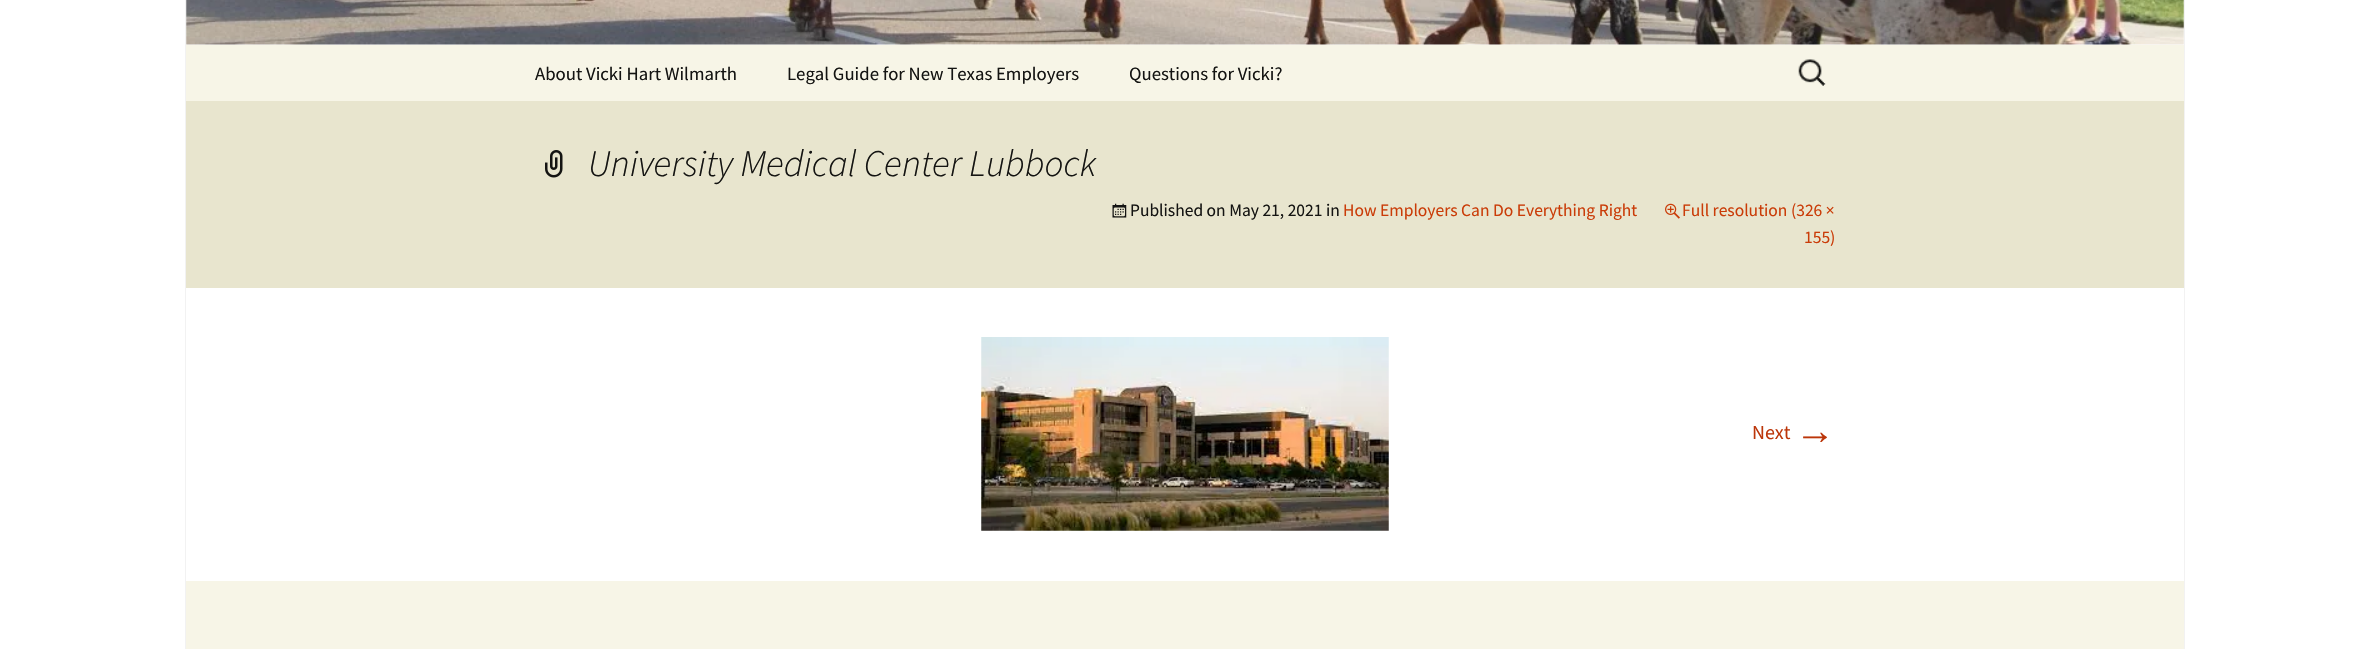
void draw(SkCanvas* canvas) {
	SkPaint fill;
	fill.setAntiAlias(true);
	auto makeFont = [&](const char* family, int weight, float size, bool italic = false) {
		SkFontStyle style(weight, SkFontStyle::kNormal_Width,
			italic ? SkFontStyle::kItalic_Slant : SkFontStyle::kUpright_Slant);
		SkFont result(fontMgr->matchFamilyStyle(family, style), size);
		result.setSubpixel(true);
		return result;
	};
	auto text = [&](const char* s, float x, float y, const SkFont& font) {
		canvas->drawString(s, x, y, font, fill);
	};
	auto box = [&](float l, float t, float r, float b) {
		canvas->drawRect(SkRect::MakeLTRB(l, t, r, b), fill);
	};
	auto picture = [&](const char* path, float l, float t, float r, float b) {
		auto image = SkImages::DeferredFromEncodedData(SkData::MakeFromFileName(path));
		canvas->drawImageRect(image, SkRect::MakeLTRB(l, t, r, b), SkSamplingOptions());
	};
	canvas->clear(0xFFFFFFFF);
	fill.setColor(0xFFF2F2F2);
	box(2184, 0, 2185, 649);
	box(185, 0, 186, 649);
	picture("image0.png", 186, 0, 2184, 45);
	fill.setColor(0xFFF7F5E7);
	box(186, 45, 2184, 101);
	picture("image1.png", 1798, 59, 1826, 86);
	fill.setColor(0xFFE8E5CE);
	box(186, 101, 2184, 288);
	picture("image2.png", 545, 150, 563, 178);
	picture("image3.png", 1112, 203, 1127, 218);
	picture("image4.png", 1665, 203, 1680, 219);
	picture("image5.png", 981, 337, 1389, 531);
	fill.setColor(0xFFF7F5E7);
	box(186, 581, 2184, 649);
	auto font1 = makeFont("Source Sans Pro", 400, 18.75f);
	fill.setColor(0xFF141412);
	text("About Vicki Hart Wilmarth", 535, 80, font1);
	text("Legal Guide for New Texas Employers", 787, 80, font1);
	text("Questions for Vicki?", 1129, 80, font1);
	auto font2 = makeFont("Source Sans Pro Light", 300, 37.5f, true);
	text("University Medical Center Lubbock", 588, 176, font2);
	auto font3 = makeFont("Source Sans Pro", 400, 17.5f);
	text("Published on May 21, 2021 in", 1130, 216, font3);
	fill.setColor(0xFFCA3C08);
	text("How Employers Can Do Everything Right", 1343, 216, font3);
	text("Full resolution (326 ×", 1682, 216, font3);
	text("155)", 1804, 243, font3);
	auto font4 = makeFont("Source Sans Pro", 400, 20);
	fill.setColor(0xFFBC360A);
	text("Next", 1752, 439, font4);
	auto font5 = makeFont("Liberation Sans", 400, 40);
	text("→", 1795, 444, font5);
}
